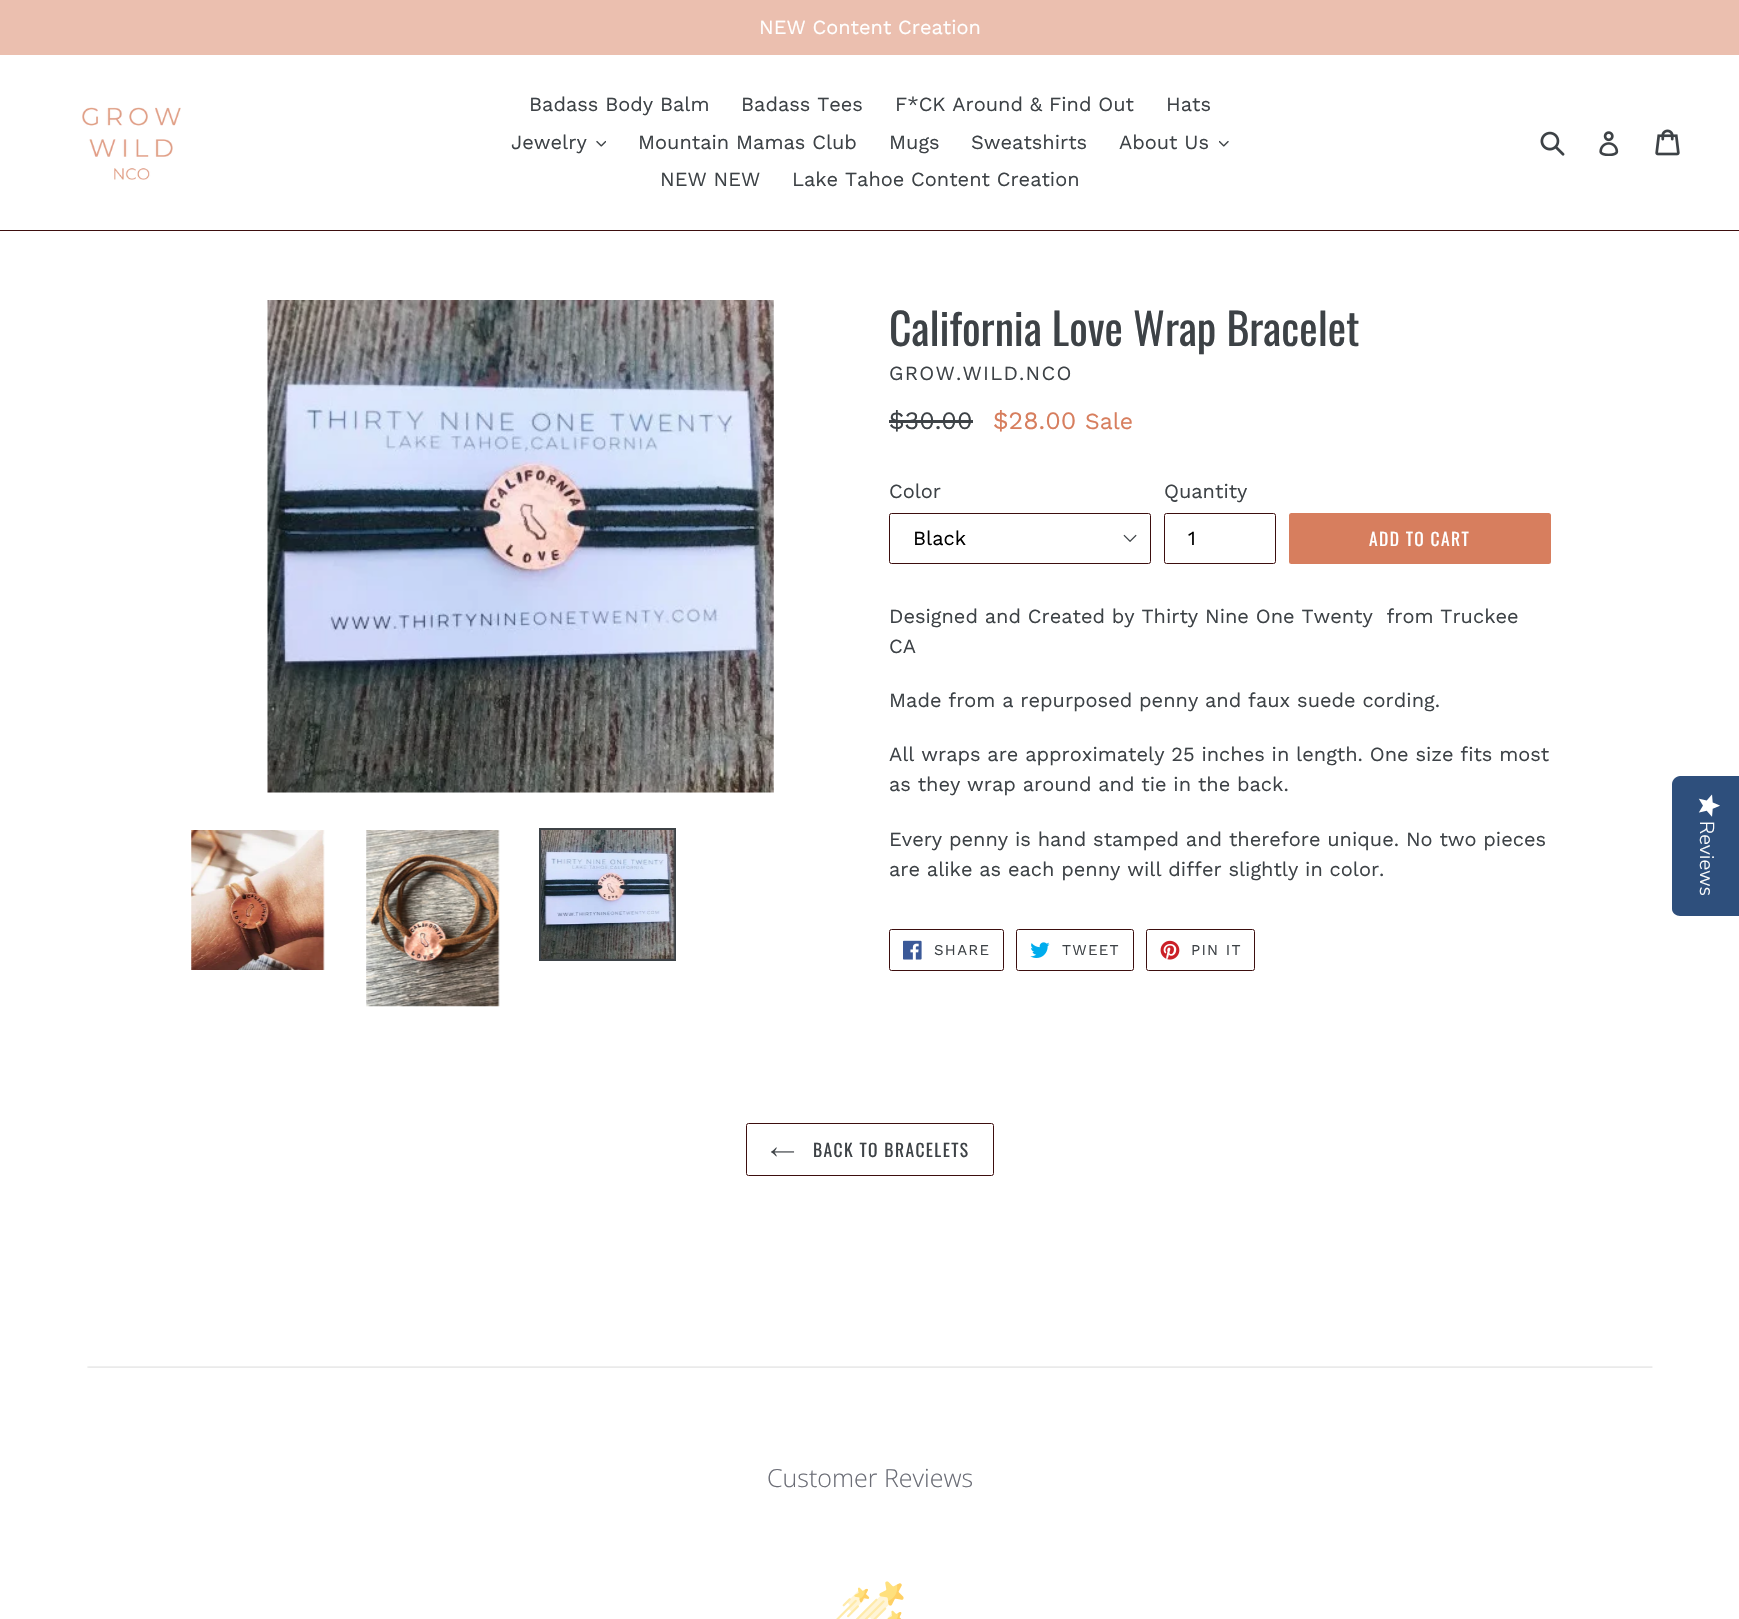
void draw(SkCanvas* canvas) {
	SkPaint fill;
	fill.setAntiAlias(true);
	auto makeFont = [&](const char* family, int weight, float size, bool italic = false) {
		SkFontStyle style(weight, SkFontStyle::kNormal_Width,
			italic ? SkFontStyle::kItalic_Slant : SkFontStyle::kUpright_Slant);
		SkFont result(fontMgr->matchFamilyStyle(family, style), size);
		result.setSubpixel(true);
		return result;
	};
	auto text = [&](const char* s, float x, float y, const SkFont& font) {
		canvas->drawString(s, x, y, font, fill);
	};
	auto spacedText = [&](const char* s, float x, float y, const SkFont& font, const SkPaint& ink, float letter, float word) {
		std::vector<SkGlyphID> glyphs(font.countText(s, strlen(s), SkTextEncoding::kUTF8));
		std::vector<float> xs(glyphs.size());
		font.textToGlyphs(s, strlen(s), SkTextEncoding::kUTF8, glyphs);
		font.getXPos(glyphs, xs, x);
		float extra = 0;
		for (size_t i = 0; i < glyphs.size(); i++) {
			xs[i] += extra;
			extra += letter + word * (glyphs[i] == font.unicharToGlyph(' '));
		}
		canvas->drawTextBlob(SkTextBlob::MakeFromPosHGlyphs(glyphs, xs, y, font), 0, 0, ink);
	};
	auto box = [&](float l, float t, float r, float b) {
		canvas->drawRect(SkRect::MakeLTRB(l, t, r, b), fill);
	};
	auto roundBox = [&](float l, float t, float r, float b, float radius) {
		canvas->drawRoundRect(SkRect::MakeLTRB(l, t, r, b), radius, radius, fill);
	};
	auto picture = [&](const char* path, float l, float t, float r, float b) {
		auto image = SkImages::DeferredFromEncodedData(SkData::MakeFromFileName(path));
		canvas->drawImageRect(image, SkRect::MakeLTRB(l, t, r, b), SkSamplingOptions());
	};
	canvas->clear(0xFFFFFFFF);
	fill.setColor(0xFFEBBFAF);
	box(0, 0, 1739, 55);
	fill.setColor(0xFF3D0E0E);
	box(0, 230, 1739, 231);
	picture("image0.png", 82, 107, 181, 180);
	picture("image1.png", 596, 140, 606, 147);
	picture("image2.png", 1219, 140, 1229, 147);
	picture("image3.png", 1540, 131, 1565, 156);
	picture("image4.png", 1599, 131, 1619, 156);
	picture("image5.png", 1655, 129, 1680, 156);
	picture("image6.png", 267, 300, 774, 793);
	picture("image7.png", 191, 830, 325, 970);
	picture("image8.png", 366, 830, 500, 1007);
	fill.setStyle(SkPaint::kStroke_Style);
	fill.setStrokeWidth(3);
	fill.setColor(0xFF3D4246);
	canvas->drawRect(SkRect::MakeLTRB(540.5f, 829.5f, 674.5f, 959.5f), fill);
	picture("image9.png", 541, 830, 675, 959);
	fill.setStyle(SkPaint::kFill_Style);
	box(889, 420, 973, 423);
	picture("image10.png", 1123, 534, 1137, 542);
	fill.setStyle(SkPaint::kStroke_Style);
	fill.setStrokeWidth(1);
	fill.setColor(0xFF3D0E0E);
	canvas->drawRoundRect(SkRect::MakeLTRB(889.5f, 513.5f, 1150.5f, 563.5f), 2, 2, fill);
	canvas->drawRoundRect(SkRect::MakeLTRB(1164.5f, 513.5f, 1275.5f, 563.5f), 2, 2, fill);
	fill.setStyle(SkPaint::kFill_Style);
	fill.setColor(0xFFD77E5E);
	roundBox(1289, 513, 1551, 564, 2.5f);
	fill.setStyle(SkPaint::kStroke_Style);
	fill.setColor(0xFF3D0E0E);
	canvas->drawRoundRect(SkRect::MakeLTRB(889.5f, 929.5f, 1003.5f, 970.5f), 2, 2, fill);
	picture("image11.png", 903, 940, 922, 960);
	canvas->drawRoundRect(SkRect::MakeLTRB(1016.5f, 929.5f, 1133.5f, 970.5f), 2, 2, fill);
	picture("image12.png", 1030, 942, 1050, 958);
	canvas->drawRoundRect(SkRect::MakeLTRB(1146.5f, 929.5f, 1254.5f, 970.5f), 2, 2, fill);
	picture("image13.png", 1160, 940, 1180, 960);
	canvas->drawRoundRect(SkRect::MakeLTRB(746.5f, 1123.5f, 993.5f, 1175.5f), 2, 2, fill);
	picture("image14.png", 771, 1147, 795, 1157);
	picture("image15.png", 87, 1366, 1653, 1368);
	picture("image16.png", 836, 1581, 904, 1619);
	fill.setStyle(SkPaint::kFill_Style);
	fill.setColor(0xFF2E4F7C);
	canvas->drawPath(SkPathBuilder().moveTo(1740, 776).lineTo(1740, 916).lineTo(1680, 916).cubicTo(1676, 916, 1672, 913, 1672, 909).lineTo(1672, 784).cubicTo(1672, 780, 1676, 776, 1680, 776).close().detach(), fill);
	picture("image17.png", 1698, 794, 1720, 817);
	auto font1 = makeFont("Work Sans", 400, 20);
	fill.setColor(0xFFFFFFFF);
	text("NEW Content Creation", 759, 34, font1);
	fill.setColor(0xFF3D4246);
	text("Badass Body Balm", 529, 111, font1);
	text("Badass Tees", 741, 111, font1);
	text("F*CK Around & Find Out", 895, 111, font1);
	text("Hats", 1166, 111, font1);
	text("Jewelry", 511, 149, font1);
	text("Mountain Mamas Club", 638, 149, font1);
	text("Mugs", 889, 149, font1);
	text("Sweatshirts", 971, 149, font1);
	text("About Us", 1119, 149, font1);
	text("NEW NEW", 660, 186, font1);
	text("Lake Tahoe Content Creation", 792, 186, font1);
	auto font2 = makeFont("Oswald", 400, 43.75f);
	text("California Love Wrap Bracelet", 889, 346, font2);
	spacedText("GROW.WILD.NCO", 889, 380, font1, fill, 1.25f, 0);
	auto font3 = makeFont("Work Sans", 400, 25);
	text("$30.00", 889, 429, font3);
	fill.setColor(0xFFD77E5E);
	text("$28.00", 993, 429, font3);
	auto font4 = makeFont("Work Sans", 400, 23);
	text("Sale", 1085, 429, font4);
	fill.setColor(0xFF3D4246);
	text("Color", 889, 498, font1);
	fill.setColor(0xFF000000);
	text("Black", 913, 545, font1);
	fill.setColor(0xFF3D4246);
	text("Quantity", 1164, 498, font1);
	fill.setColor(0xFF000000);
	text("1", 1188, 545, font1);
	auto font5 = makeFont("Oswald", 400, 17.5f);
	fill.setColor(0xFFFFFFFF);
	spacedText("ADD TO CART", 1369, 546, font5, fill, 1.4f, 0);
	fill.setColor(0xFF3D4246);
	text("Designed and Created by Thirty Nine One Twenty  from Truckee", 889, 623, font1);
	text("CA", 889, 653, font1);
	text("Made from a repurposed penny and faux suede cording.", 889, 707, font1);
	text("All wraps are approximately 25 inches in length. One size fits most", 889, 761, font1);
	text("as they wrap around and tie in the back.", 889, 791, font1);
	text("Every penny is hand stamped and therefore unique. No two pieces", 889, 846, font1);
	text("are alike as each penny will differ slightly in color.", 889, 876, font1);
	auto font6 = makeFont("Work Sans", 400, 15);
	spacedText("SHARE", 934, 955, font6, fill, 1.25f, 0);
	spacedText("TWEET", 1062, 955, font6, fill, 1.25f, 0);
	spacedText("PIN IT", 1191, 955, font6, fill, 1.25f, 0);
	spacedText("BACK TO BRACELETS", 813, 1157, font5, fill, 1.4f, 0);
	auto font7 = makeFont("Open Sans", 300, 25);
	fill.setColor(0xFF6B6D76);
	text("Customer Reviews", 767, 1487, font7);
	auto font8 = makeFont("Nunito Sans", 300, 20);
	fill.setColor(0xFFFFFFFF);
	canvas->save();
	canvas->rotate(90, 1700, 821);
	text("Reviews", 1700, 821, font8);
	canvas->restore();
}
